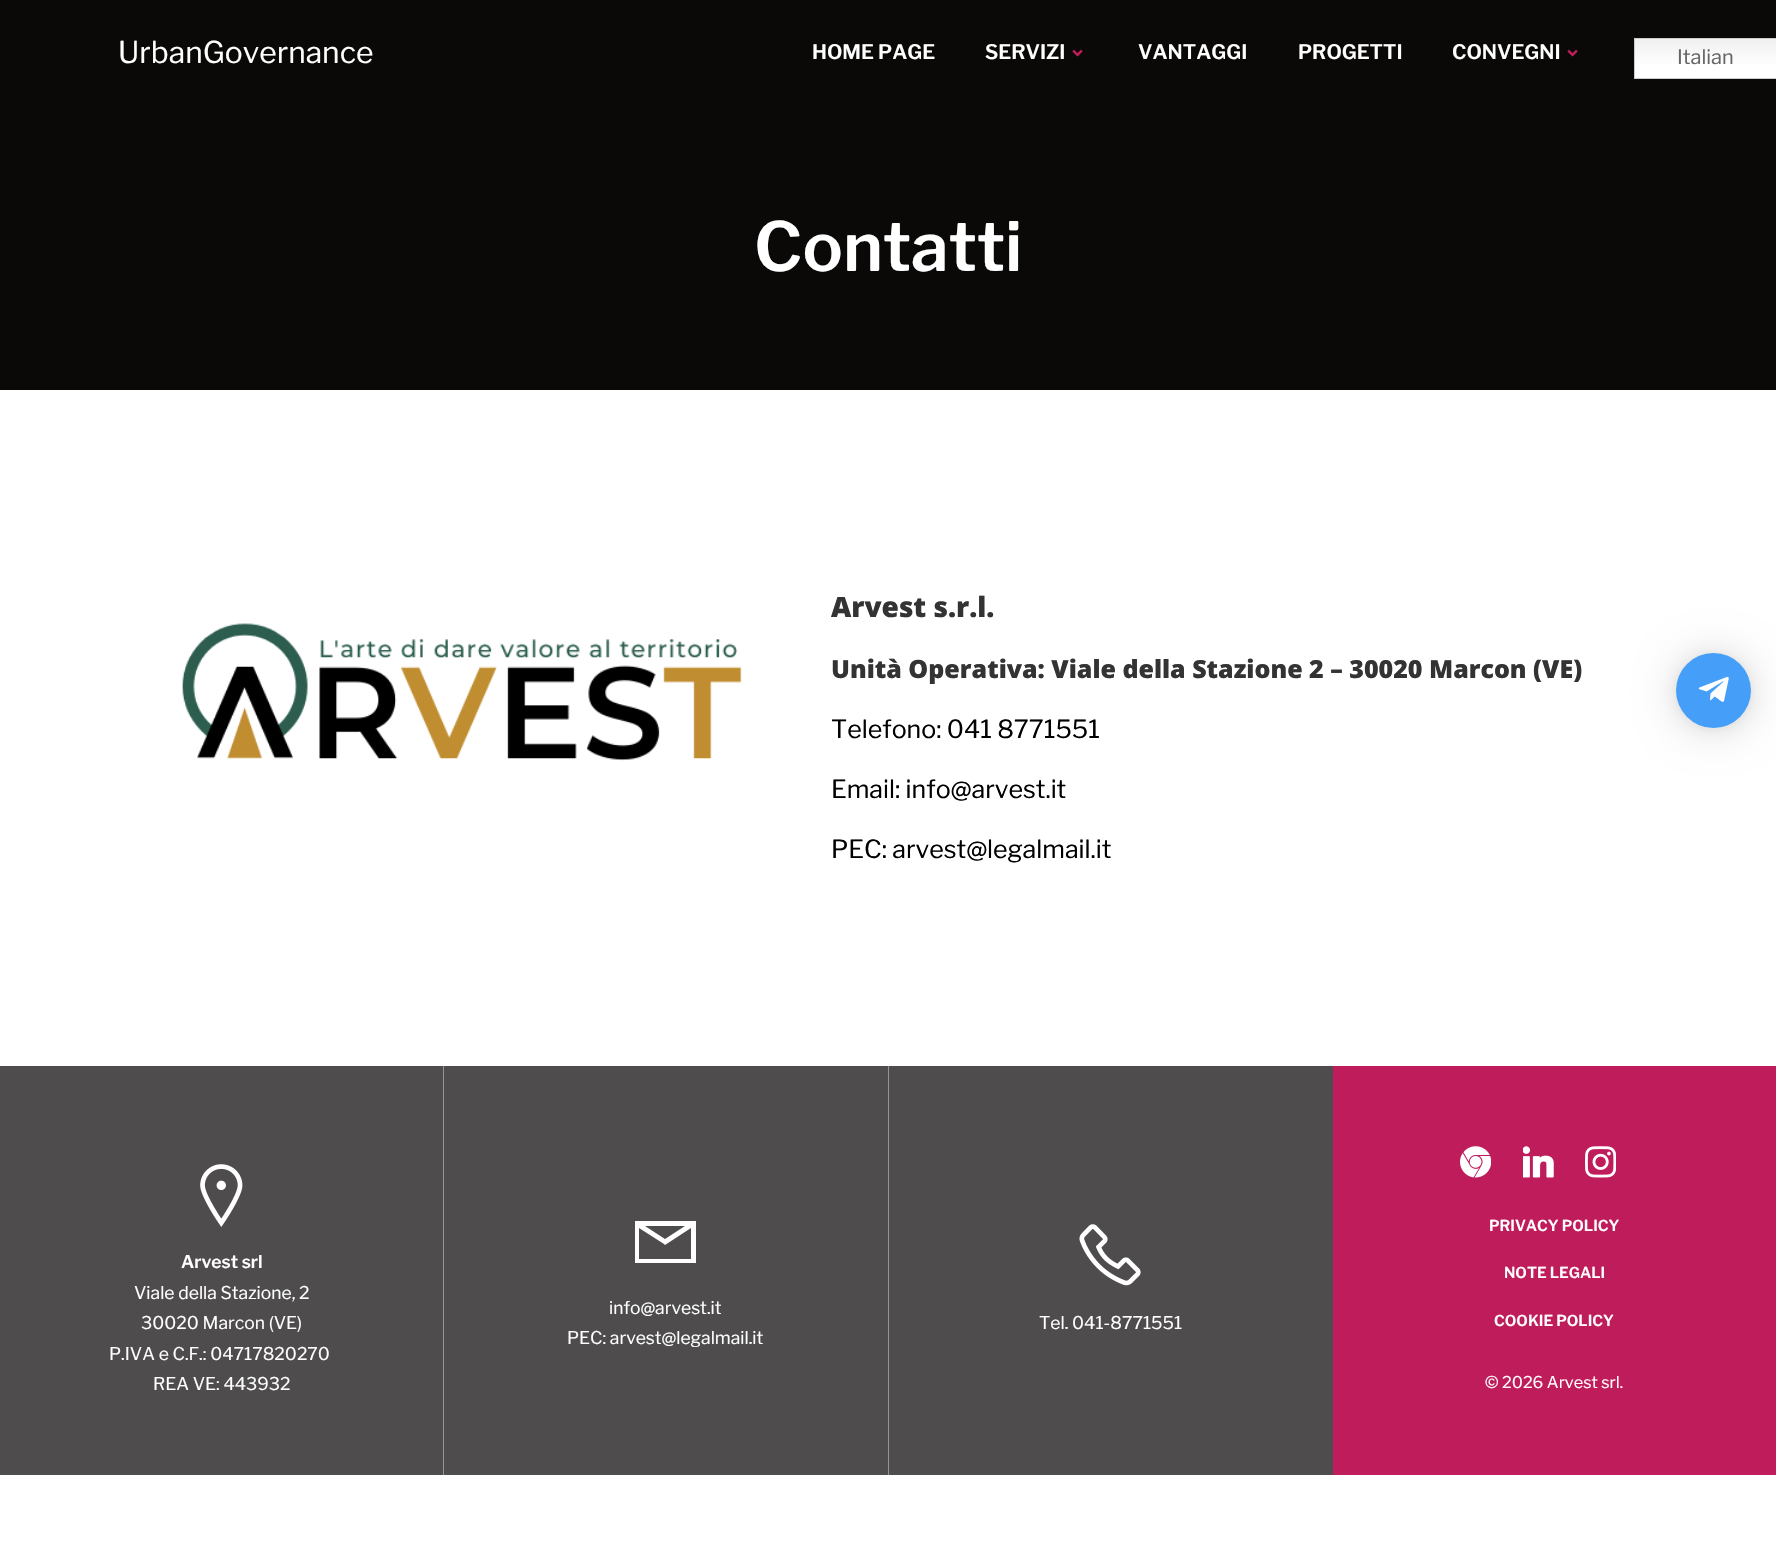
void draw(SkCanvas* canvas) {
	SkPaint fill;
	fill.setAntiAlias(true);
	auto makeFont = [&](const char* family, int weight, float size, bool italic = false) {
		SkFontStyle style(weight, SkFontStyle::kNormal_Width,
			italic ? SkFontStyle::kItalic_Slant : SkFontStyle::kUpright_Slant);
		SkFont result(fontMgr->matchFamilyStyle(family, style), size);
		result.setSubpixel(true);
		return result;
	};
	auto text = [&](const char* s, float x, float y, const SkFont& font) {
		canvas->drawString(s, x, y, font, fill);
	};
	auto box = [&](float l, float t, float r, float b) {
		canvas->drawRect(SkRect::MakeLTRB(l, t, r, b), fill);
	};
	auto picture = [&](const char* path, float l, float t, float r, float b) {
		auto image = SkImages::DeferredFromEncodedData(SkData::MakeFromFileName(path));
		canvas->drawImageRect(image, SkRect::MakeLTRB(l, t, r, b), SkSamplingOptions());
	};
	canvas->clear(0xFFFFFFFF);
	fill.setColor(0xFF0A0907);
	box(0, 0, 1776, 390);
	picture("image0.png", 1072, 50, 1083, 57);
	picture("image0.png", 1567, 50, 1578, 57);
	{
		const SkColor colors[] = {0xFFEFEFEF, 0xFFFFFFFF};
		const float stops[] = {0, 0.7f};
		const SkPoint ends[] = {{1742, 37}, {1742, 79}};
		fill.setShader(SkGradientShader::MakeLinear(ends, colors, stops, 2, SkTileMode::kClamp));
		fill.setAlpha(255);
	}
	box(1635, 39, 1776, 78);
	fill.setStyle(SkPaint::kStroke_Style);
	fill.setStrokeWidth(1);
	fill.setShader(nullptr);
	fill.setColor(0xFFCCCCCC);
	canvas->drawRect(SkRect::MakeLTRB(1634.5f, 38.5f, 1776.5f, 78.5f), fill);
	picture("image1.png", 182, 623, 742, 761);
	fill.setStyle(SkPaint::kFill_Style);
	fill.setColor(0xFF4E4C4C);
	box(0, 1066, 443, 1475);
	fill.setColor(0xFF959494);
	box(443, 1066, 444, 1475);
	picture("image2.png", 200, 1164, 243, 1227);
	fill.setColor(0xFF4E4C4C);
	box(444, 1066, 888, 1475);
	fill.setColor(0xFF959494);
	box(888, 1066, 889, 1475);
	fill.setColor(0xFFFFFFFF);
	canvas->drawPath(SkPathBuilder().moveTo(635, 1221).lineTo(696, 1221).lineTo(696, 1263).lineTo(635, 1263).close().moveTo(645, 1226).lineTo(665, 1239).lineTo(685, 1226).close().moveTo(639, 1228).lineTo(639, 1259).lineTo(691, 1259).lineTo(691, 1228).lineTo(665, 1245).lineTo(664, 1244).close().detach(), fill);
	fill.setColor(0xFF4E4C4C);
	box(889, 1066, 1333, 1475);
	picture("image3.png", 1079, 1224, 1141, 1286);
	fill.setColor(0xFFBF1C5B);
	box(1333, 1066, 1776, 1475);
	picture("image4.png", 1460, 1146, 1491, 1178);
	picture("image5.png", 1523, 1146, 1554, 1178);
	picture("image6.png", 1585, 1146, 1616, 1178);
	fill.setColor(0x29000000);
	fill.setMaskFilter(SkMaskFilter::MakeBlur(kNormal_SkBlurStyle, 20));
	canvas->drawRoundRect(SkRect::MakeLTRB(1676, 655, 1751, 730), 37.5f, 37.5f, fill);
	fill.setMaskFilter(nullptr);
	fill.setColor(0x0F000000);
	fill.setMaskFilter(SkMaskFilter::MakeBlur(kNormal_SkBlurStyle, 4));
	canvas->drawRoundRect(SkRect::MakeLTRB(1676, 654, 1751, 729), 37.5f, 37.5f, fill);
	fill.setMaskFilter(nullptr);
	fill.setColor(0xFF459FF9);
	canvas->drawCircle(1713.5f, 690.5f, 37.5f, fill);
	picture("image7.png", 1698, 676, 1729, 702);
	auto font1 = makeFont("Libre Franklin", 400, 30);
	fill.setColor(0xFFFFFFFF);
	text("UrbanGovernance", 118, 63, font1);
	auto font2 = makeFont("Libre Franklin", 600, 20);
	text("HOME PAGE", 812, 59, font2);
	text("SERVIZI", 985, 59, font2);
	text("VANTAGGI", 1138, 59, font2);
	text("PROGETTI", 1298, 59, font2);
	text("CONVEGNI", 1452, 59, font2);
	auto font3 = makeFont("Libre Franklin", 400, 20);
	fill.setColor(0xFF666666);
	text("Italian", 1677, 64, font3);
	auto font4 = makeFont("Libre Franklin", 600, 67.5f);
	fill.setColor(0xFFFFFFFF);
	text("Contatti", 754, 271, font4);
	auto font5 = makeFont("Open Sans", 800, 28);
	fill.setColor(0xFF333333);
	text("Arvest s.r.l.", 831, 617, font5);
	auto font6 = makeFont("Open Sans", 800, 25);
	text("Unità Operativa: Viale della Stazione 2 – 30020 Marcon (VE)", 831, 678, font6);
	auto font7 = makeFont("Libre Franklin", 400, 25);
	fill.setColor(0xFF000000);
	text("Telefono: 041 8771551", 831, 738, font7);
	text("Email: info@arvest.it", 831, 798, font7);
	text("PEC: arvest@legalmail.it", 831, 858, font7);
	auto font8 = makeFont("Libre Franklin", 600, 17.5f);
	fill.setColor(0xFFFFFFFF);
	text("Arvest srl", 181, 1268, font8);
	auto font9 = makeFont("Libre Franklin", 400, 17.5f);
	text("Viale della Stazione, 2", 134, 1299, font9);
	text("30020 Marcon (VE)", 141, 1329, font9);
	text("P.IVA e C.F.: 04717820270", 109, 1360, font9);
	text("REA VE: 443932", 153, 1390, font9);
	text("info@arvest.it", 609, 1314, font9);
	text("PEC: arvest@legalmail.it", 567, 1344, font9);
	text("Tel. 041-8771551", 1039, 1329, font9);
	auto font10 = makeFont("Libre Franklin", 600, 15);
	text("PRIVACY POLICY", 1489, 1231, font10);
	text("NOTE LEGALI", 1504, 1278, font10);
	text("COOKIE POLICY", 1494, 1326, font10);
	auto font11 = makeFont("Libre Franklin", 400, 16.25f);
	text("© 2026 Arvest srl.", 1485, 1388, font11);
}
